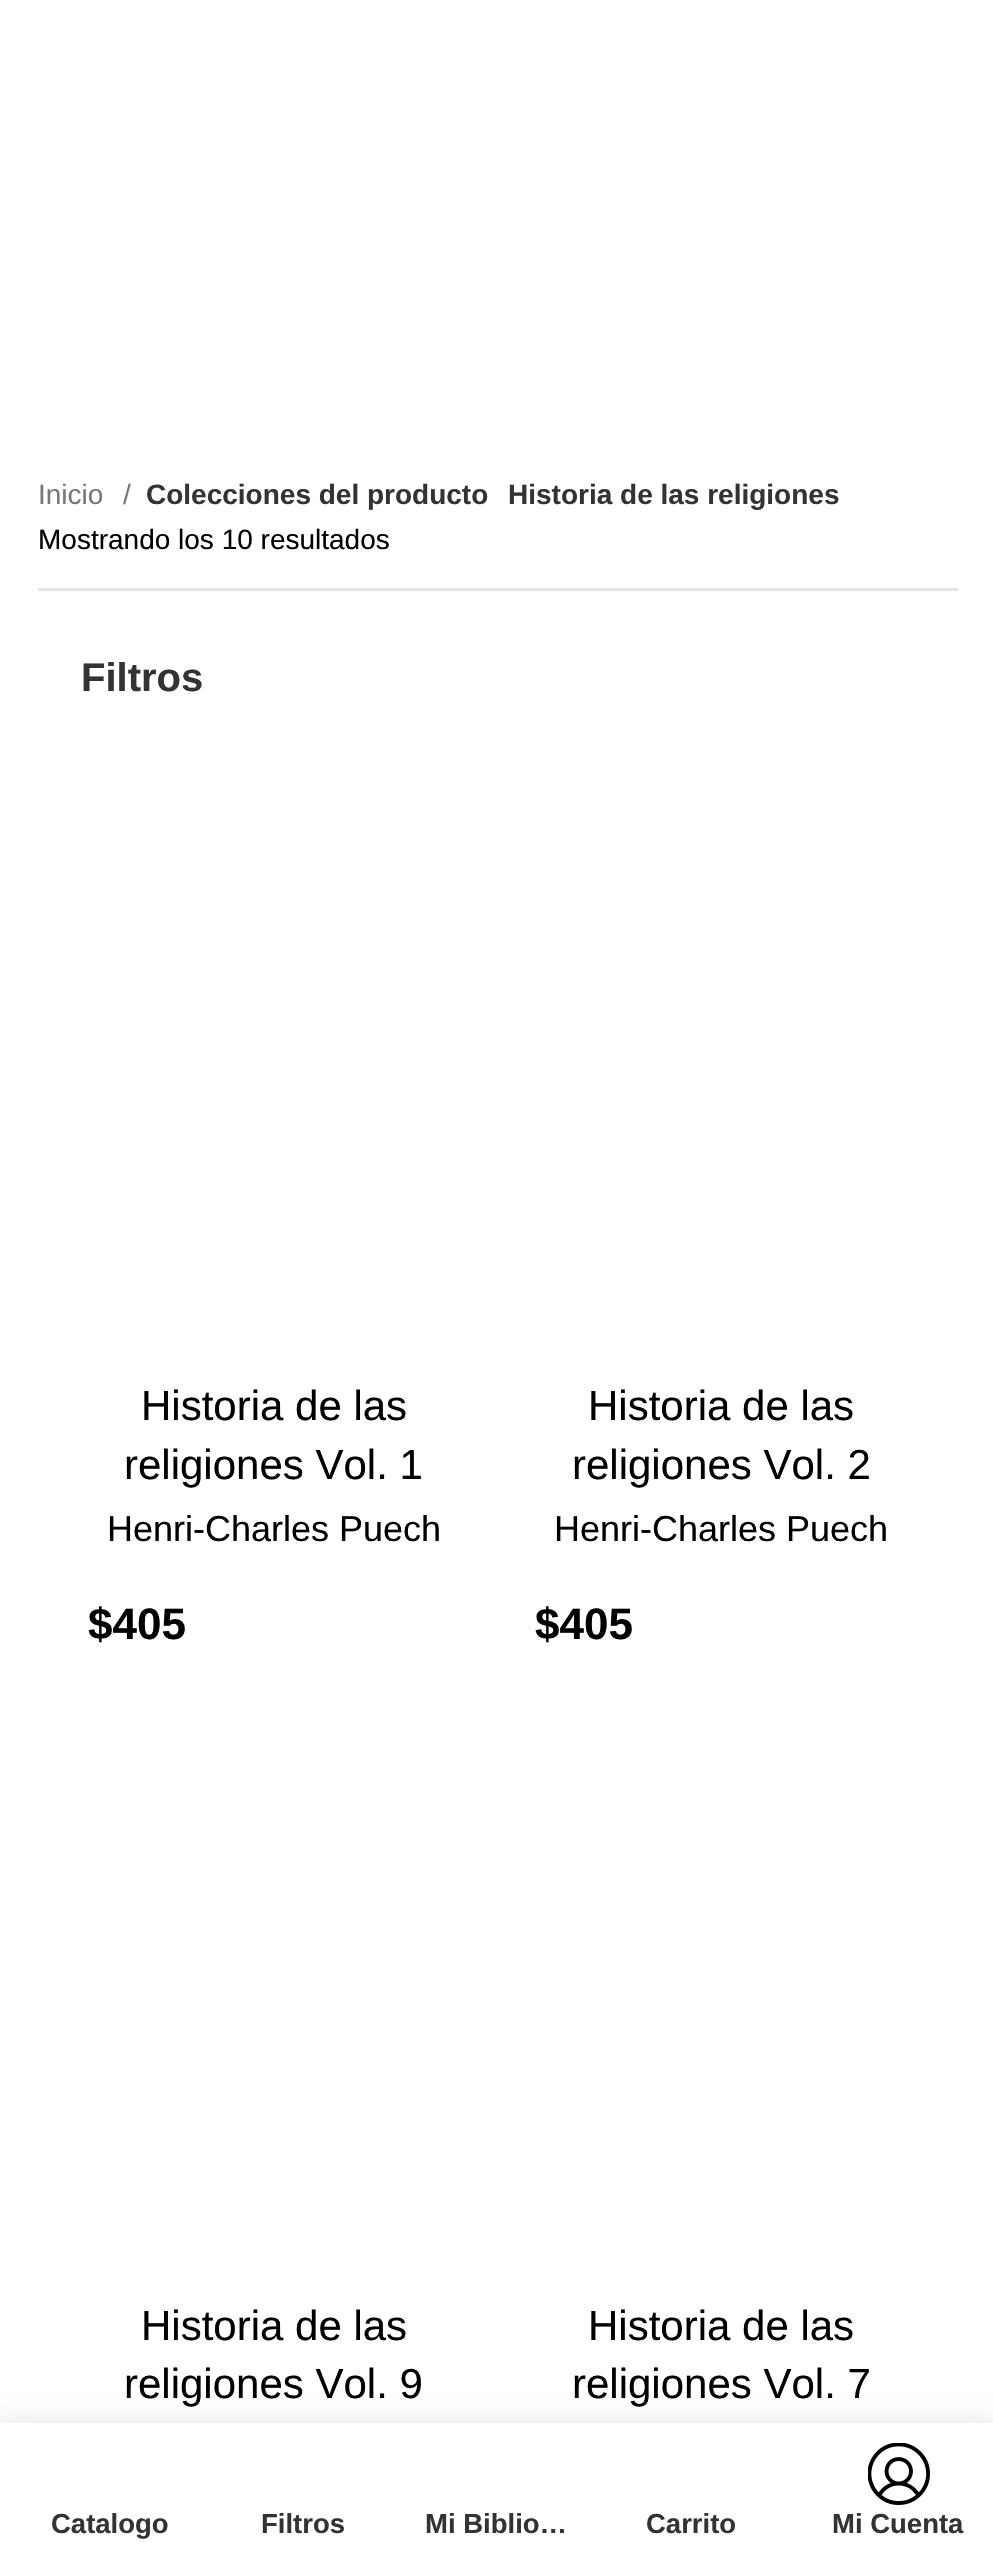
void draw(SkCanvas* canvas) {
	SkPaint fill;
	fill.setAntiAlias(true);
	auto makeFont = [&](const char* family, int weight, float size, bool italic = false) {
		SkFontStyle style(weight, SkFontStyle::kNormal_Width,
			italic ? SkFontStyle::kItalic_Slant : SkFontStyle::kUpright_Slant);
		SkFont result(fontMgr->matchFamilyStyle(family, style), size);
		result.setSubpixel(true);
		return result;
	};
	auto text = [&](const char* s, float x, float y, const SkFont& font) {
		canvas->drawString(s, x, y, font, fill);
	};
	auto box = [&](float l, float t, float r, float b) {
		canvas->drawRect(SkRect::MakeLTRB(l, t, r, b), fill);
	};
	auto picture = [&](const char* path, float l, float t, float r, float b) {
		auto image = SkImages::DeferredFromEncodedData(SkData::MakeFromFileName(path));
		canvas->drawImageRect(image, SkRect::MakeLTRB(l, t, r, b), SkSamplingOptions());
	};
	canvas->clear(0xFFFFFFFF);
	fill.setColor(0xFFE4E4E4);
	box(38, 588, 958, 591);
	fill.setColor(0x1F000000);
	fill.setMaskFilter(SkMaskFilter::MakeBlur(kNormal_SkBlurStyle, 11));
	canvas->drawRect(SkRect::MakeLTRB(0, 2423, 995, 2560), fill);
	fill.setMaskFilter(nullptr);
	fill.setColor(0xFFFFFFFF);
	box(0, 2423, 993, 2560);
	picture("image0.png", 868, 2443, 930, 2505);
	auto font1 = makeFont("Liberation Sans", 400, 28);
	fill.setColor(0xFF777777);
	text("Inicio", 38, 504, font1);
	text("/", 123, 504, font1);
	auto font2 = makeFont("Liberation Sans", 700, 28);
	fill.setColor(0xFF333333);
	text("Colecciones del producto", 146, 504, font2);
	text("Historia de las religiones", 508, 504, font2);
	fill.setColor(0xFF000000);
	text("Mostrando los 10 resultados", 38, 549, font1);
	auto font3 = makeFont("Liberation Sans", 700, 40);
	fill.setColor(0xFF333333);
	text("Filtros", 81, 691, font3);
	auto font4 = makeFont("Liberation Sans", 400, 42);
	fill.setColor(0xFF000000);
	text("Historia de las", 141, 1420, font4);
	text("religiones Vol. 1", 124, 1479, font4);
	auto font5 = makeFont("Liberation Sans", 400, 36);
	text("Henri-Charles Puech", 107, 1541, font5);
	auto font6 = makeFont("Liberation Sans", 700, 44);
	text("$405", 88, 1639, font6);
	text("Historia de las", 588, 1420, font4);
	text("religiones Vol. 2", 572, 1479, font4);
	text("Henri-Charles Puech", 554, 1541, font5);
	text("$405", 535, 1639, font6);
	text("Historia de las", 141, 2340, font4);
	text("religiones Vol. 9", 124, 2398, font4);
	text("Historia de las", 588, 2340, font4);
	text("religiones Vol. 7", 572, 2398, font4);
	auto font7 = makeFont("Liberation Sans", 700, 27.5f);
	fill.setColor(0xFF333333);
	text("Catalogo", 51, 2533, font7);
	text("Filtros", 261, 2533, font7);
	text("Mi Biblio…", 425, 2533, font7);
	text("Carrito", 646, 2533, font7);
	text("Mi Cuenta", 832, 2533, font7);
}
